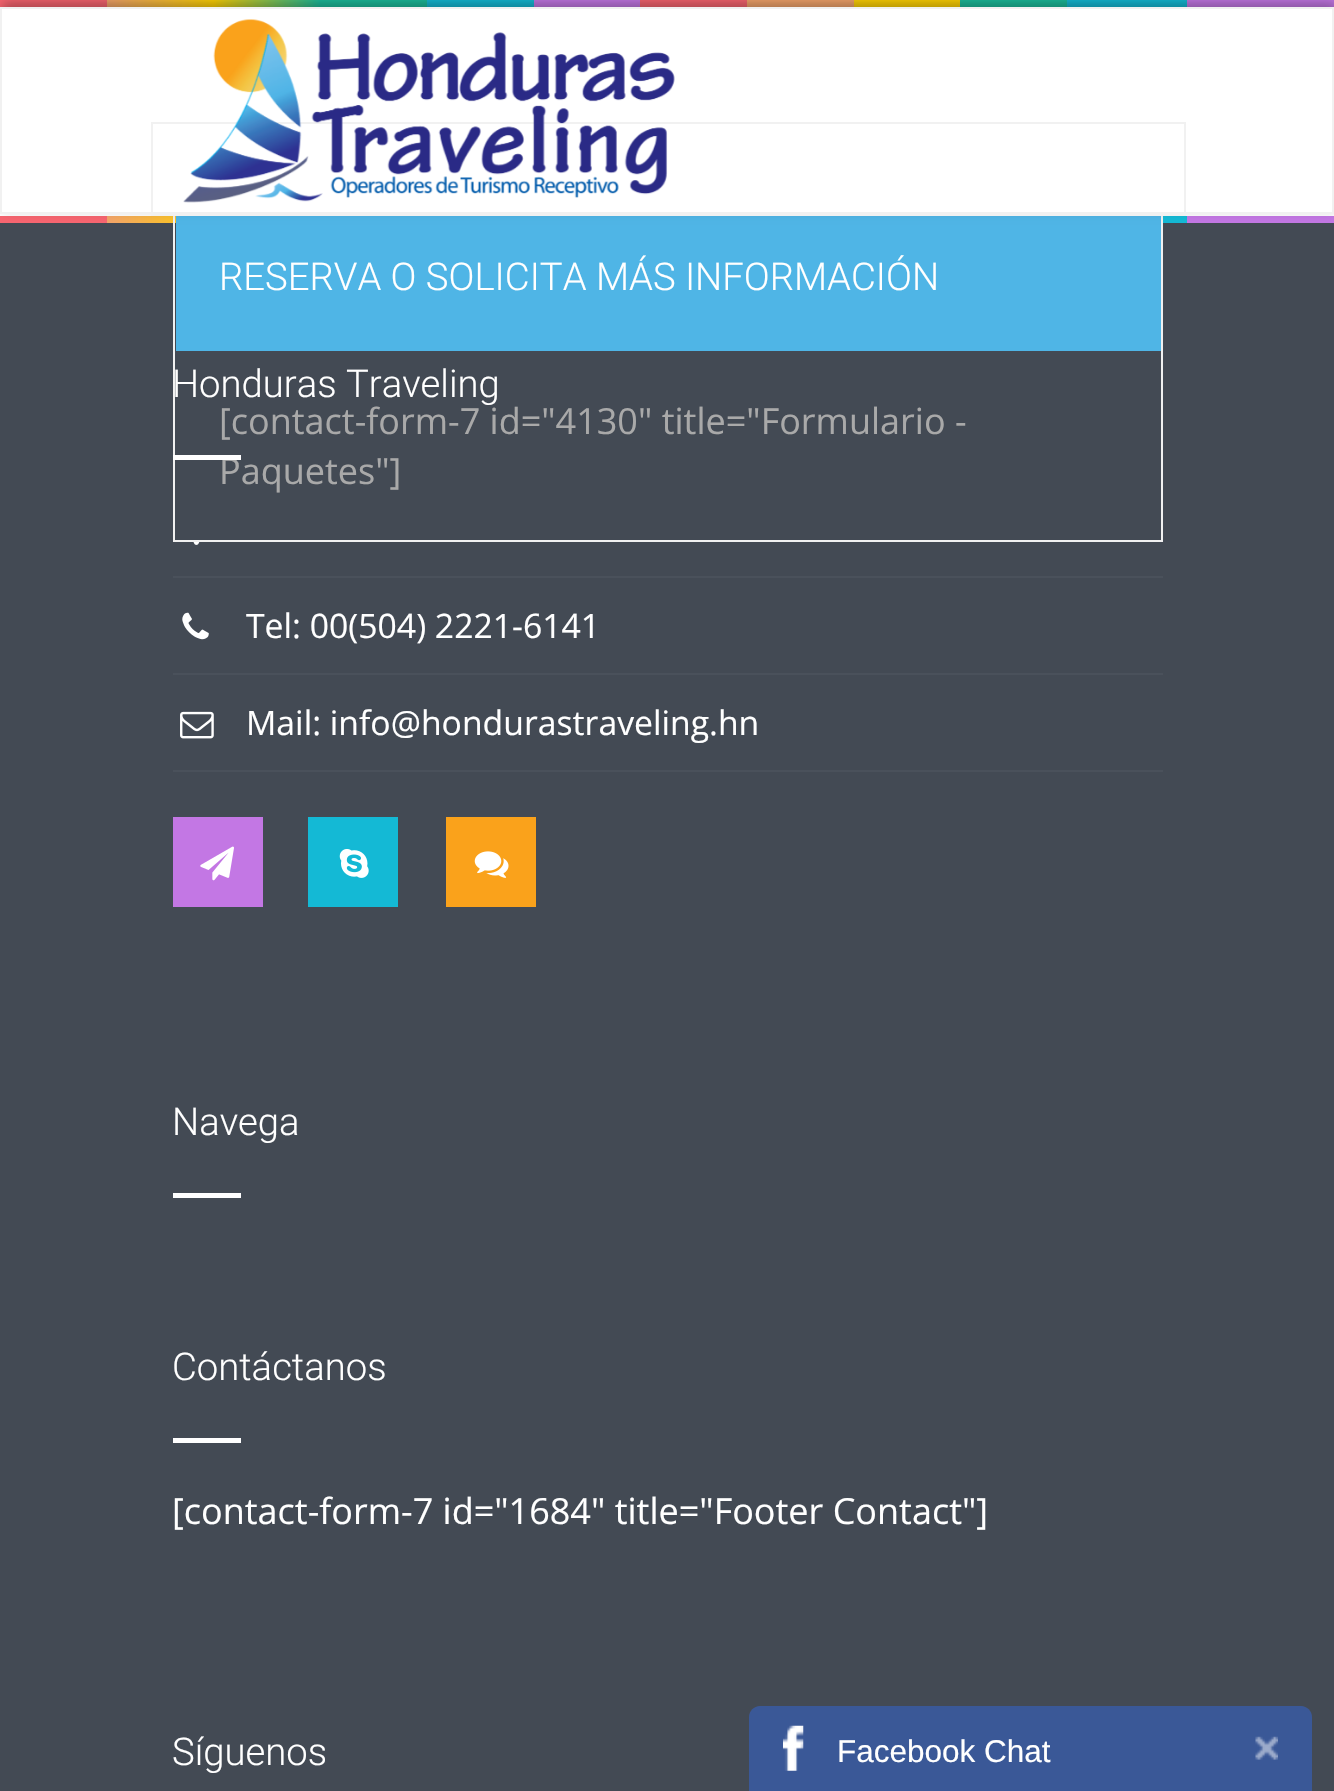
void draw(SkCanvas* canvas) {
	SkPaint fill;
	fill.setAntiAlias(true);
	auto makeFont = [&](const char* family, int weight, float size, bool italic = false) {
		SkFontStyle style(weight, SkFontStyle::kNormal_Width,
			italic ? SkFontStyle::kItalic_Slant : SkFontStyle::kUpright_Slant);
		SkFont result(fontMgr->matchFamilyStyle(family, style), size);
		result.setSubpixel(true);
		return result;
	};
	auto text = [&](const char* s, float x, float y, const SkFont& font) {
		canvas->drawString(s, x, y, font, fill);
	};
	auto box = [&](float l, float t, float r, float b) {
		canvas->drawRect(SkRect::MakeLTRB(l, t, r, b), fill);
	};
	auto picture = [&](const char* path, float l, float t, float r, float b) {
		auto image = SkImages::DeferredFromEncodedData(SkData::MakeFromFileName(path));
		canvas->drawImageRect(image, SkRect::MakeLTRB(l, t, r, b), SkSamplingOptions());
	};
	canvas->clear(0xFFFFFFFF);
	{
		const SkColor colors[] = {0xFFF76570, 0xFFF76570, 0xFFF3A46B, 0xFFFFD205, 0xFF1BBC9B, 0xFF1BBC9B, 0xFF14B9D5, 0xFF14B9D5, 0xFFC377E4, 0xFFC377E4, 0xFFF76570, 0xFFF76570, 0xFFF3A46B, 0xFFF3A46B, 0xFFFFD205, 0xFFFFD205, 0xFF1BBC9B, 0xFF1BBC9B, 0xFF14B9D5, 0xFF14B9D5, 0xFFC377E4, 0xFFC377E4};
		const float stops[] = {0, 0.08f, 0.08f, 0.16f, 0.24f, 0.32f, 0.32f, 0.4f, 0.4f, 0.48f, 0.48f, 0.56f, 0.56f, 0.64f, 0.64f, 0.72f, 0.72f, 0.8f, 0.8f, 0.89f, 0.89f, 1};
		const SkPoint ends[] = {{0, 3.4f}, {1334, 3.4f}};
		fill.setShader(SkGradientShader::MakeLinear(ends, colors, stops, 22, SkTileMode::kClamp));
		fill.setAlpha(255);
	}
	box(0, 0, 1334, 7);
	{
		const SkColor colors[] = {0xFFF76570, 0xFFF76570, 0xFFF3A46B, 0xFFFFD205, 0xFF1BBC9B, 0xFF1BBC9B, 0xFF14B9D5, 0xFF14B9D5, 0xFFC377E4, 0xFFC377E4, 0xFFF76570, 0xFFF76570, 0xFFF3A46B, 0xFFF3A46B, 0xFFFFD205, 0xFFFFD205, 0xFF1BBC9B, 0xFF1BBC9B, 0xFF14B9D5, 0xFF14B9D5, 0xFFC377E4, 0xFFC377E4};
		const float stops[] = {0, 0.08f, 0.08f, 0.16f, 0.24f, 0.32f, 0.32f, 0.4f, 0.4f, 0.48f, 0.48f, 0.56f, 0.56f, 0.64f, 0.64f, 0.72f, 0.72f, 0.8f, 0.8f, 0.89f, 0.89f, 1};
		const SkPoint ends[] = {{0, 219}, {1334, 219}};
		fill.setShader(SkGradientShader::MakeLinear(ends, colors, stops, 22, SkTileMode::kClamp));
		fill.setAlpha(255);
	}
	box(0, 216, 1334, 223);
	fill.setShader(nullptr);
	fill.setColor(0xFF434A54);
	box(0, 223, 1334, 1791);
	fill.setStyle(SkPaint::kStroke_Style);
	fill.setStrokeWidth(2);
	fill.setColor(0xFFF1F1F1);
	canvas->drawRect(SkRect::MakeLTRB(174, 204, 1162, 541), fill);
	fill.setStyle(SkPaint::kFill_Style);
	fill.setColor(0xFF4FB5E6);
	box(176, 216, 1161, 351);
	fill.setColor(0x4D000000);
	fill.setMaskFilter(SkMaskFilter::MakeBlur(kNormal_SkBlurStyle, 5.5f));
	canvas->drawRect(SkRect::MakeLTRB(2, 2, 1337, 209), fill);
	fill.setMaskFilter(nullptr);
	fill.setColor(0xFFFFFFFF);
	canvas->drawRect(SkRect::MakeLTRB(1, 8, 1333, 213), fill);
	fill.setStyle(SkPaint::kStroke_Style);
	fill.setColor(0xFFF1F1F1);
	canvas->drawRect(SkRect::MakeLTRB(1, 8, 1333, 213), fill);
	canvas->drawRect(SkRect::MakeLTRB(152, 123, 1185, 215), fill);
	picture("image0.png", 183, 19, 675, 203);
	fill.setStyle(SkPaint::kFill_Style);
	fill.setColor(0xFF4A515B);
	box(173, 576, 1163, 578);
	picture("image1.png", 193, 542, 200, 545);
	box(173, 673, 1163, 675);
	picture("image2.png", 182, 612, 209, 640);
	box(173, 770, 1163, 772);
	picture("image3.png", 180, 711, 214, 739);
	fill.setColor(0xFFC377E4);
	box(173, 817, 263, 907);
	picture("image4.png", 200, 846, 234, 881);
	fill.setColor(0xFF14B9D5);
	box(308, 817, 398, 907);
	picture("image5.png", 339, 849, 369, 878);
	fill.setColor(0xFFFAA21B);
	box(446, 817, 536, 907);
	picture("image6.png", 474, 851, 509, 878);
	fill.setColor(0xFFFFFFFF);
	box(173, 1193, 241, 1198);
	box(173, 1438, 241, 1443);
	fill.setColor(0xFF3A5897);
	canvas->drawPath(SkPathBuilder().moveTo(760, 1706).lineTo(1301, 1706).cubicTo(1307, 1706, 1312, 1711, 1312, 1717).lineTo(1312, 1791).lineTo(749, 1791).lineTo(749, 1717).cubicTo(749, 1711, 754, 1706, 760, 1706).close().detach(), fill);
	picture("image7.png", 783, 1725, 804, 1771);
	picture("image8.png", 1255, 1736, 1278, 1760);
	auto font1 = makeFont("Roboto", 300, 38.25f);
	fill.setColor(0xFFFFFFFF);
	text("RESERVA O SOLICITA MÁS INFORMACIÓN", 219, 290, font1);
	auto font2 = makeFont("Open Sans", 400, 36);
	fill.setColor(0xFFA9A9A9);
	text("[contact-form-7 id=\"4130\" title=\"Formulario -", 219, 434, font2);
	text("Paquetes\"]", 219, 484, font2);
	fill.setColor(0xFFFFFFFF);
	text("Honduras Traveling", 172, 397, font1);
	box(173, 455, 241, 460);
	auto font3 = makeFont("Open Sans", 400, 33.75f);
	text("Tel: 00(504) 2221-6141", 246, 638, font3);
	text("Mail: info@hondurastraveling.hn", 246, 735, font3);
	text("Navega", 172, 1135, font1);
	text("Contáctanos", 172, 1380, font1);
	text("[contact-form-7 id=\"1684\" title=\"Footer Contact\"]", 172, 1524, font2);
	text("Síguenos", 172, 1765, font1);
	auto font4 = makeFont("Liberation Sans", 400, 31.5f);
	text("Facebook Chat", 837, 1762, font4);
}
